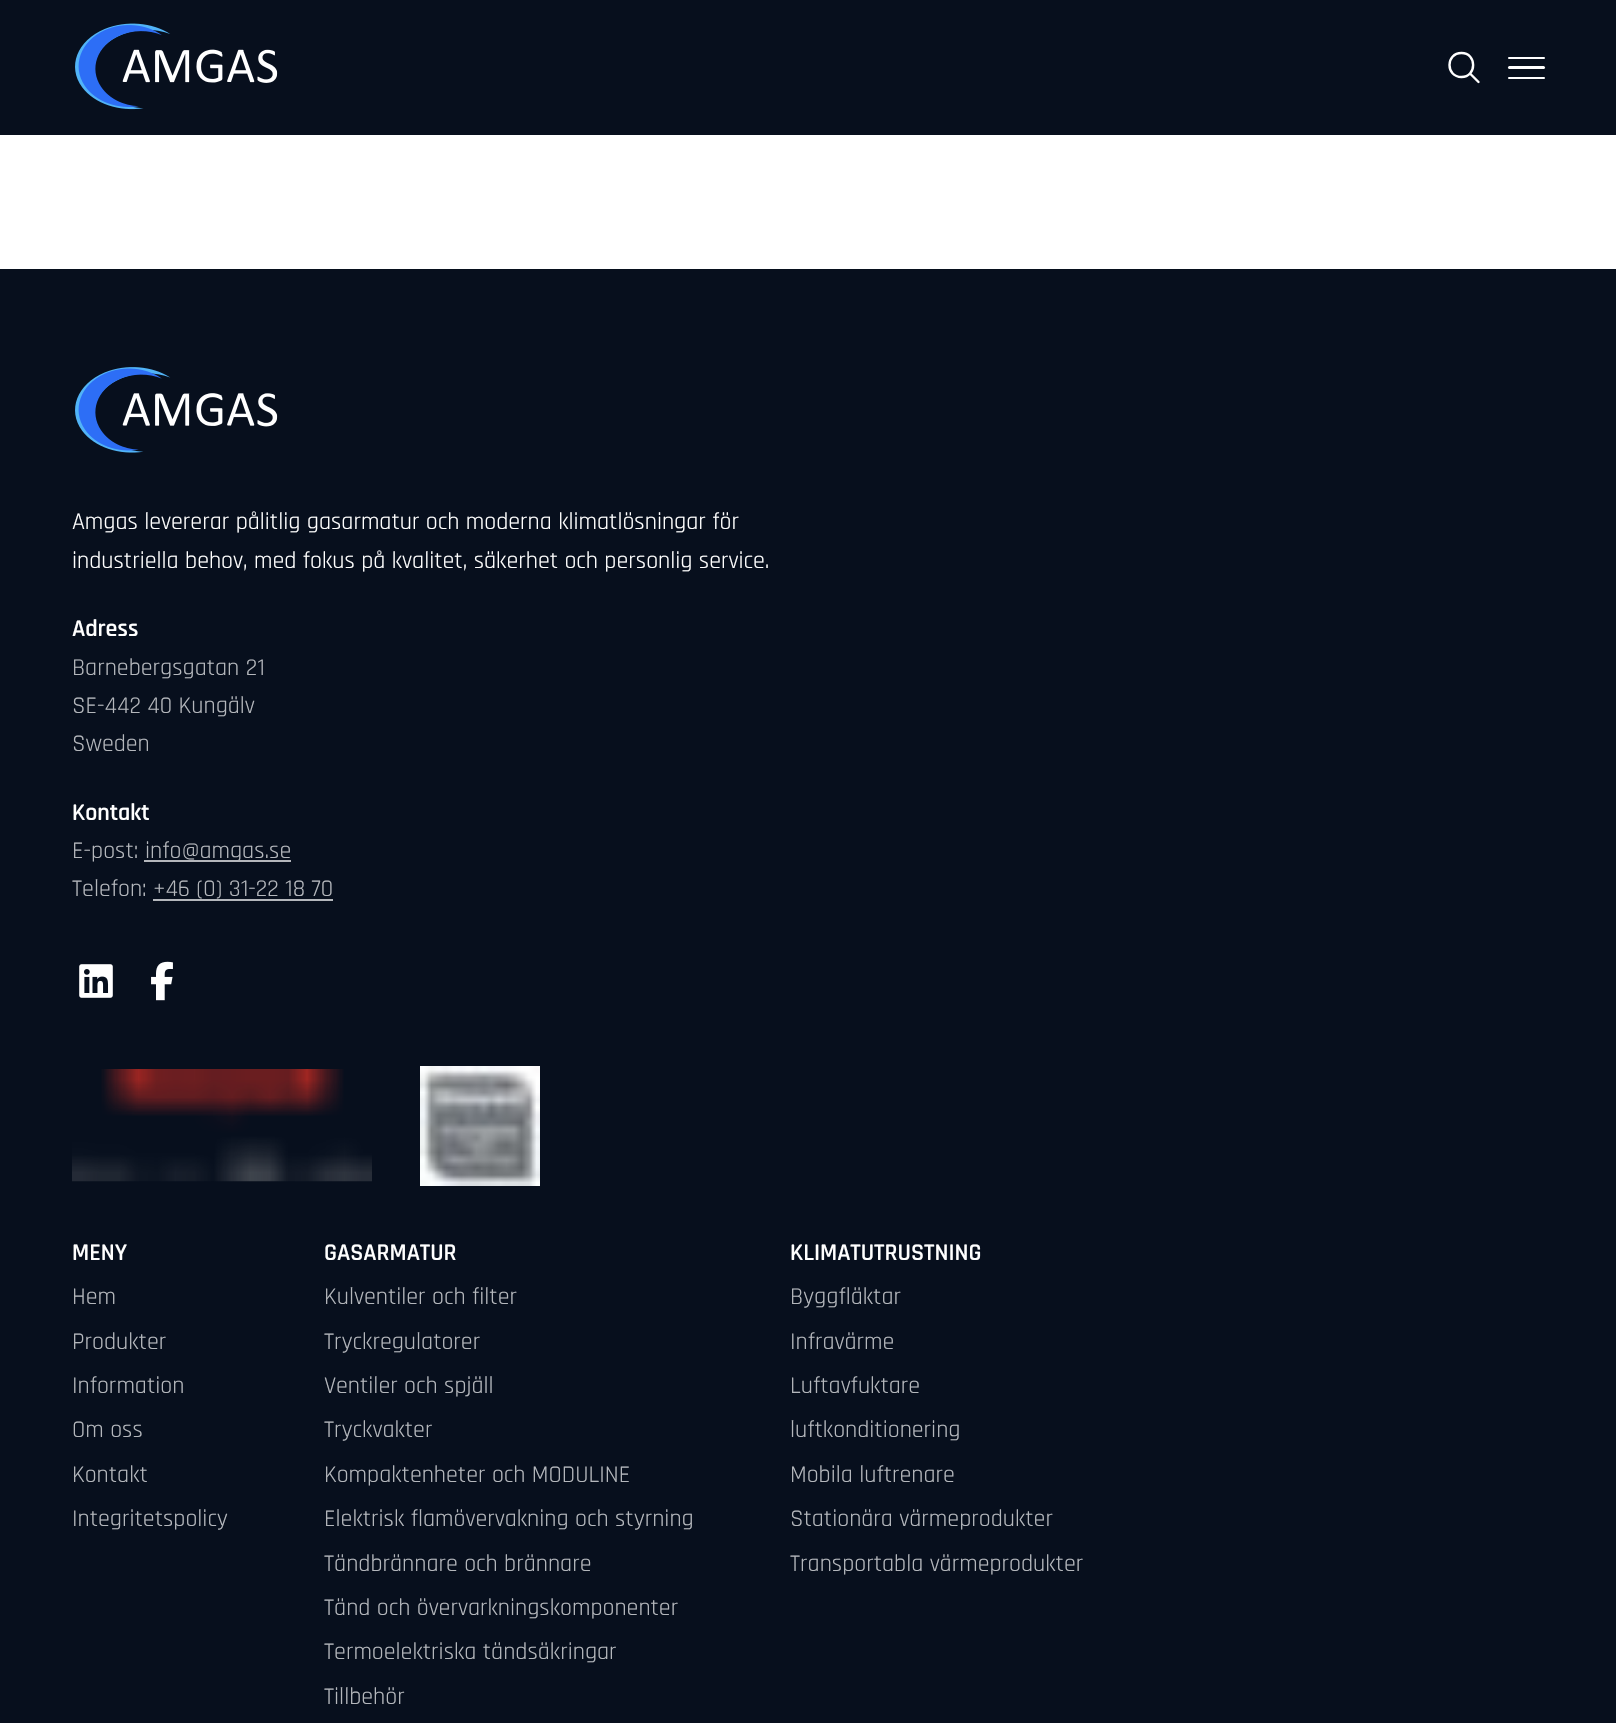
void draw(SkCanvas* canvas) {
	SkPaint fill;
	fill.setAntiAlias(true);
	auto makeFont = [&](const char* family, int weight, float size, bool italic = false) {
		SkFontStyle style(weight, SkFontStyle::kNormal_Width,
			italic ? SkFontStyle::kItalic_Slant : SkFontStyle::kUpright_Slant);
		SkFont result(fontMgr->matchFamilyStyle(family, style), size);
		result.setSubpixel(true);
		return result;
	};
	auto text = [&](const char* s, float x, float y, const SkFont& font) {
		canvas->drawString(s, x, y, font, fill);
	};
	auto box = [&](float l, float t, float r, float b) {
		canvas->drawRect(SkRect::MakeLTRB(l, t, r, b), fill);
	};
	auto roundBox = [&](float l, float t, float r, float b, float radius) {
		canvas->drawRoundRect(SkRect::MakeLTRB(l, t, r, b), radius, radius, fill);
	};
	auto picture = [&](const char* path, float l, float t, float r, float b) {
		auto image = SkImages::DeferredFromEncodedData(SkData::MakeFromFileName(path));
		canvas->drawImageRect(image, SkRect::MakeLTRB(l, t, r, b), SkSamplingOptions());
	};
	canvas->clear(0xFFFFFFFF);
	fill.setColor(0xFF070F1D);
	box(0, 0, 1616, 135);
	picture("image0.png", 75, 23, 278, 110);
	fill.setStyle(SkPaint::kStroke_Style);
	fill.setStrokeWidth(2.4f);
	fill.setColor(0xFFFFFFFF);
	canvas->drawPath(SkPathBuilder().moveTo(1461.5f, 53).cubicTo(1445.5f, 53, 1445.5f, 77, 1461.5f, 77).cubicTo(1477, 77, 1477, 53, 1461.5f, 53).close().detach(), fill);
	fill.setStrokeCap(SkPaint::kRound_Cap);
	canvas->drawPath(SkPathBuilder().moveTo(1470.5f, 74).lineTo(1478.5f, 82).detach(), fill);
	fill.setStyle(SkPaint::kFill_Style);
	roundBox(1508, 57, 1545, 59, 1);
	roundBox(1508, 66, 1545, 69, 1.5f);
	roundBox(1508, 77, 1545, 79, 1);
	fill.setColor(0xFF070F1D);
	box(0, 269, 1616, 1723);
	picture("image1.png", 75, 367, 278, 453);
	fill.setColor(0xFFB4B7BC);
	box(144, 860, 291, 862);
	box(153, 899, 333, 901);
	picture("image2.png", 79, 964, 113, 998);
	picture("image3.png", 151, 961, 173, 1001);
	picture("image4.png", 72, 1069, 372, 1182);
	picture("image5.png", 420, 1066, 540, 1186);
	auto font1 = makeFont("Rajdhani", 400, 24);
	fill.setColor(0xFFFFFFFF);
	text("Amgas levererar pålitlig gasarmatur och moderna klimatlösningar för", 72, 529, font1);
	text("industriella behov, med fokus på kvalitet, säkerhet och personlig service.", 72, 568, font1);
	auto font2 = makeFont("Rajdhani", 600, 24);
	text("Adress", 72, 636, font2);
	fill.setColor(0xFFB4B7BC);
	text("Barnebergsgatan 21", 72, 675, font1);
	text("SE-442 40 Kungälv", 72, 713, font1);
	text("Sweden", 72, 751, font1);
	fill.setColor(0xFFFFFFFF);
	text("Kontakt", 72, 820, font2);
	fill.setColor(0xFFB4B7BC);
	text("E-post:", 72, 858, font1);
	text("info@amgas.se", 145, 858, font1);
	text("Telefon: +46 (0) 31-22 18 70", 72, 896, font1);
	fill.setColor(0xFFFFFFFF);
	text("MENY", 72, 1260, font2);
	fill.setColor(0xFFB4B7BC);
	text("Hem", 72, 1304, font1);
	text("Produkter", 72, 1349, font1);
	text("Information", 72, 1393, font1);
	text("Om oss", 72, 1437, font1);
	text("Kontakt", 72, 1482, font1);
	text("Integritetspolicy", 72, 1526, font1);
	fill.setColor(0xFFFFFFFF);
	text("GASARMATUR", 324, 1260, font2);
	fill.setColor(0xFFB4B7BC);
	text("Kulventiler och filter", 324, 1304, font1);
	text("Tryckregulatorer", 324, 1349, font1);
	text("Ventiler och spjäll", 324, 1393, font1);
	text("Tryckvakter", 324, 1437, font1);
	text("Kompaktenheter och MODULINE", 324, 1482, font1);
	text("Elektrisk flamövervakning och styrning", 324, 1526, font1);
	text("Tändbrännare och brännare", 324, 1571, font1);
	text("Tänd och övervarkningskomponenter", 324, 1615, font1);
	text("Termoelektriska tändsäkringar", 324, 1659, font1);
	text("Tillbehör", 324, 1704, font1);
	fill.setColor(0xFFFFFFFF);
	text("KLIMATUTRUSTNING", 790, 1260, font2);
	fill.setColor(0xFFB4B7BC);
	text("Byggfläktar", 790, 1304, font1);
	text("Infravärme", 790, 1349, font1);
	text("Luftavfuktare", 790, 1393, font1);
	text("luftkonditionering", 790, 1437, font1);
	text("Mobila luftrenare", 790, 1482, font1);
	text("Stationära värmeprodukter", 790, 1526, font1);
	text("Transportabla värmeprodukter", 790, 1571, font1);
}
